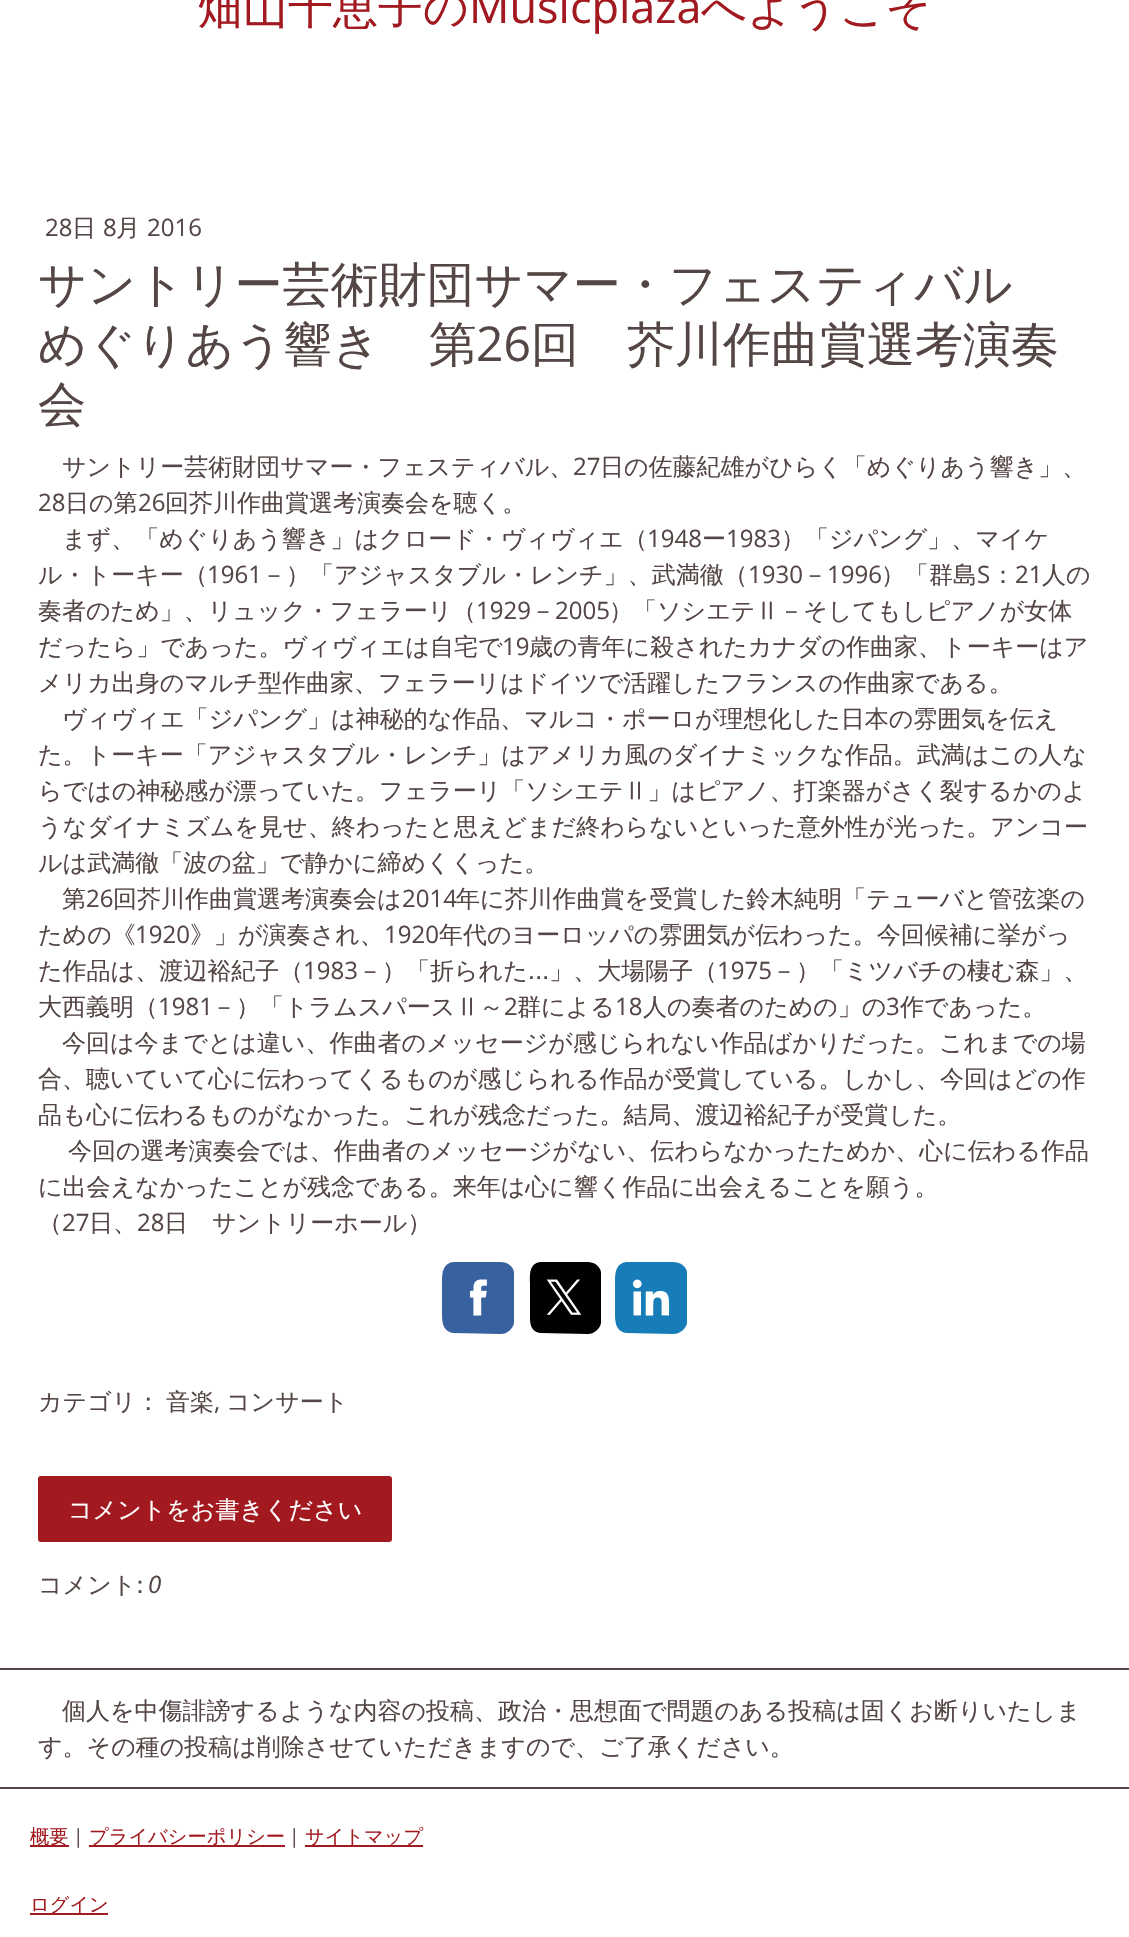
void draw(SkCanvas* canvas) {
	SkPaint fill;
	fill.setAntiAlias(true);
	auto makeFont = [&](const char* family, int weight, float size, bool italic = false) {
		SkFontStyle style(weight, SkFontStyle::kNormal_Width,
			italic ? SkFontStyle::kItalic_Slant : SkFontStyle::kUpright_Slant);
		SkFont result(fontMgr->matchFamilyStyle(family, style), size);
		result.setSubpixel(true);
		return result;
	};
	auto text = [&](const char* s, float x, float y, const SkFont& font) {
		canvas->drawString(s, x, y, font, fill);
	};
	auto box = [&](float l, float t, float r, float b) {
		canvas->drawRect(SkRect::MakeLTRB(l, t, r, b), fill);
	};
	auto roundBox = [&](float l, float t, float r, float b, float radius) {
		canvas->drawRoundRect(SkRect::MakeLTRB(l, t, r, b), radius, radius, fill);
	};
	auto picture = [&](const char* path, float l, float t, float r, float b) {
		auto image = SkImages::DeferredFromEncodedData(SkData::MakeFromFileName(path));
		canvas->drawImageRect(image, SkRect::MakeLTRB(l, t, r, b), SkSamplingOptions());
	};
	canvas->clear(0xFFFFFFFF);
	fill.setColor(0xFF38619F);
	canvas->drawPath(SkPathBuilder().moveTo(501, 1334).lineTo(453, 1333).cubicTo(442, 1331, 442, 1321, 442, 1312).lineTo(442, 1283).cubicTo(442, 1274, 442, 1264, 453, 1262).lineTo(501, 1262).cubicTo(507, 1262, 513, 1266, 514, 1272).lineTo(514, 1323).cubicTo(513, 1329, 507, 1334, 501, 1334).close().detach(), fill);
	picture("image0.png", 470, 1279, 487, 1316);
	fill.setColor(0xFF000000);
	canvas->drawPath(SkPathBuilder().moveTo(588, 1334).lineTo(540, 1333).cubicTo(529, 1331, 530, 1321, 530, 1312).lineTo(530, 1283).cubicTo(530, 1274, 529, 1264, 540, 1262).lineTo(588, 1262).cubicTo(594, 1262, 600, 1266, 601, 1272).lineTo(601, 1323).cubicTo(600, 1329, 594, 1334, 588, 1334).close().detach(), fill);
	picture("image1.png", 546, 1279, 582, 1315);
	fill.setColor(0xFF177DB9);
	canvas->drawPath(SkPathBuilder().moveTo(673, 1334).lineTo(626, 1333).cubicTo(615, 1331, 615, 1321, 615, 1312).lineTo(615, 1283).cubicTo(615, 1274, 615, 1264, 626, 1262).lineTo(673, 1262).cubicTo(680, 1262, 686, 1266, 687, 1272).lineTo(687, 1323).cubicTo(686, 1329, 680, 1334, 673, 1334).close().detach(), fill);
	picture("image2.png", 633, 1279, 670, 1316);
	fill.setColor(0xFFA21A20);
	roundBox(38, 1476, 392, 1542, 3);
	fill.setColor(0xFF544645);
	box(0, 1668, 1129, 1670);
	box(0, 1787, 1129, 1789);
	fill.setColor(0xFFA21A20);
	box(30, 1845, 69, 1847);
	box(89, 1845, 285, 1847);
	box(305, 1845, 423, 1847);
	box(30, 1913, 108, 1915);
	auto font1 = makeFont("WenQuanYi Zen Hei", 500, 45);
	text("畑山千恵子の", 198, 23, font1);
	auto font2 = makeFont("Open Sans", 400, 45);
	text("Musicplaza", 469, 23, font2);
	text("へようこそ", 701, 23, font1);
	auto font3 = makeFont("Open Sans", 400, 24);
	fill.setColor(0xFF544645);
	text("28", 45, 236, font3);
	auto font4 = makeFont("WenQuanYi Zen Hei", 500, 24);
	text("日", 72, 236, font4);
	text("8", 103, 236, font3);
	text("月", 116, 236, font4);
	text("2016", 147, 236, font3);
	auto font5 = makeFont("WenQuanYi Zen Hei", 500, 48);
	text("サントリー芸術財団サマー・フェスティバル", 38, 301, font5);
	text("めぐりあう響き　第", 38, 361, font5);
	auto font6 = makeFont("Open Sans", 400, 48);
	text("26", 476, 361, font6);
	text("回　芥川作曲賞選考演奏", 531, 361, font5);
	text("会", 38, 421, font5);
	text("サントリー芸術財団サマー・フェスティバル、", 62, 475, font4);
	text("27", 573, 475, font3);
	text("日の佐藤紀雄がひらく「めぐりあう響き」、", 600, 475, font4);
	text("28", 38, 511, font3);
	text("日の第", 65, 511, font4);
	text("26", 138, 511, font3);
	text("回芥川作曲賞選考演奏会を聴く。", 165, 511, font4);
	text("まず、「めぐりあう響き」はクロード・ヴィヴィエ（", 62, 547, font4);
	text("1948", 647, 547, font3);
	text("ー", 702, 547, font4);
	text("1983", 726, 547, font3);
	text("）「ジパング」、マイケ", 781, 547, font4);
	text("ル・トーキー（", 38, 583, font4);
	text("1961", 207, 583, font3);
	text("－）「アジャスタブル・レンチ」、武満徹（", 262, 583, font4);
	text("1930", 748, 583, font3);
	text("－", 803, 583, font4);
	text("1996", 827, 583, font3);
	text("）「群島", 881, 583, font4);
	text("S", 977, 583, font3);
	text("：", 991, 583, font4);
	text("21", 1015, 583, font3);
	text("人の", 1042, 583, font4);
	text("奏者のため」、リュック・フェラーリ（", 38, 619, font4);
	text("1929", 476, 619, font3);
	text("－", 531, 619, font4);
	text("2005", 555, 619, font3);
	text("）「ソシエテⅡ－そしてもしピアノが女体", 609, 619, font4);
	text("だったら」であった。ヴィヴィエは自宅で", 38, 655, font4);
	text("19", 502, 655, font3);
	text("歳の青年に殺されたカナダの作曲家、トーキーはア", 529, 655, font4);
	text("メリカ出身のマルチ型作曲家、フェラーリはドイツで活躍したフランスの作曲家である。", 38, 691, font4);
	text("ヴィヴィエ「ジパング」は神秘的な作品、マルコ・ポーロが理想化した日本の雰囲気を伝え", 62, 727, font4);
	text("た。トーキー「アジャスタブル・レンチ」はアメリカ風のダイナミックな作品。武満はこの人な", 38, 763, font4);
	text("らではの神秘感が漂っていた。フェラーリ「ソシエテⅡ」はピアノ、打楽器がさく裂するかのよ", 38, 799, font4);
	text("うなダイナミズムを見せ、終わったと思えどまだ終わらないといった意外性が光った。アンコー", 38, 835, font4);
	text("ルは武満徹「波の盆」で静かに締めくくった。", 38, 871, font4);
	text("第", 62, 907, font4);
	text("26", 86, 907, font3);
	text("回芥川作曲賞選考演奏会は", 113, 907, font4);
	text("2014", 402, 907, font3);
	text("年に芥川作曲賞を受賞した鈴木純明「テューバと管弦楽の", 456, 907, font4);
	text("ための《", 38, 943, font4);
	text("1920", 135, 943, font3);
	text("》」が演奏され、", 190, 943, font4);
	text("1920", 384, 943, font3);
	text("年代のヨーロッパの雰囲気が伝わった。今回候補に挙がっ", 439, 943, font4);
	text("た作品は、渡辺裕紀子（", 38, 979, font4);
	text("1983", 303, 979, font3);
	text("－）「折られた...」、大場陽子（", 358, 979, font4);
	text("1975", 717, 979, font3);
	text("－）「ミツバチの棲む森」、", 772, 979, font4);
	text("大西義明（", 38, 1015, font4);
	text("1981", 158, 1015, font3);
	text("－）「トラムスパースⅡ～", 212, 1015, font4);
	text("2", 504, 1015, font3);
	text("群による", 517, 1015, font4);
	text("18", 615, 1015, font3);
	text("人の奏者のための」の", 643, 1015, font4);
	text("3", 886, 1015, font3);
	text("作であった。", 900, 1015, font4);
	text("今回は今までとは違い、作曲者のメッセージが感じられない作品ばかりだった。これまでの場", 62, 1051, font4);
	text("合、聴いていて心に伝わってくるものが感じられる作品が受賞している。しかし、今回はどの作", 38, 1087, font4);
	text("品も心に伝わるものがなかった。これが残念だった。結局、渡辺裕紀子が受賞した。", 38, 1123, font4);
	text("今回の選考演奏会では、作曲者のメッセージがない、伝わらなかったためか、心に伝わる作品", 68, 1159, font4);
	text("に出会えなかったことが残念である。来年は心に響く作品に出会えることを願う。", 38, 1195, font4);
	text("（", 38, 1231, font4);
	text("27", 62, 1231, font3);
	text("日、", 89, 1231, font4);
	text("28", 137, 1231, font3);
	text("日　サントリーホール）", 164, 1231, font4);
	text("カテゴリ：", 38, 1410, font4);
	text("音楽", 166, 1410, font4);
	text(",", 214, 1410, font3);
	text("コンサート", 226, 1410, font4);
	fill.setColor(0xFFFFFFFF);
	text("コメントをお書きください", 68, 1518, font4);
	fill.setColor(0xFF544645);
	text("コメント:", 38, 1593, font4);
	auto font7 = makeFont("Open Sans", 400, 24, true);
	text("0", 148, 1593, font7);
	text("個人を中傷誹謗するような内容の投稿、政治・思想面で問題のある投稿は固くお断りいたしま", 62, 1719, font4);
	text("す。その種の投稿は削除させていただきますので、ご了承ください。", 38, 1755, font4);
	auto font8 = makeFont("WenQuanYi Zen Hei", 500, 19.25f);
	fill.setColor(0xFFA21A20);
	text("概要", 30, 1843, font8);
	auto font9 = makeFont("Open Sans", 400, 19.25f);
	fill.setColor(0xFF544645);
	text("|", 73, 1843, font9);
	fill.setColor(0xFFA21A20);
	text("プライバシーポリシー", 89, 1843, font8);
	fill.setColor(0xFF544645);
	text("|", 289, 1843, font9);
	fill.setColor(0xFFA21A20);
	text("サイトマップ", 305, 1843, font8);
	text("ログイン", 30, 1911, font8);
}
